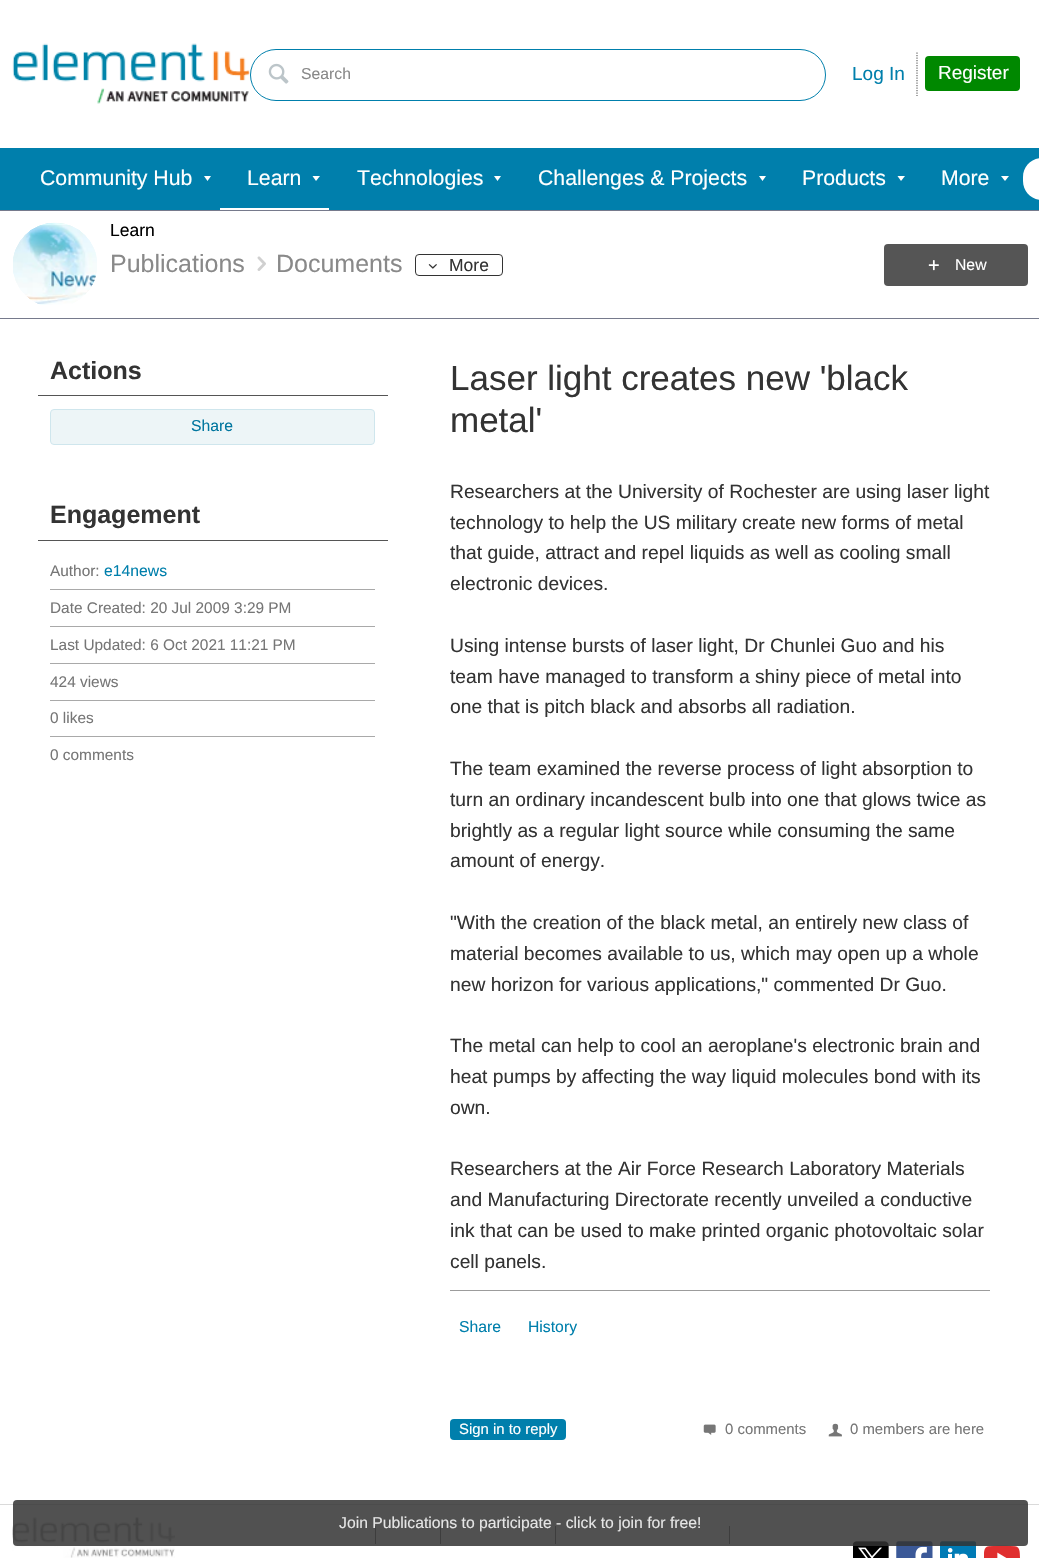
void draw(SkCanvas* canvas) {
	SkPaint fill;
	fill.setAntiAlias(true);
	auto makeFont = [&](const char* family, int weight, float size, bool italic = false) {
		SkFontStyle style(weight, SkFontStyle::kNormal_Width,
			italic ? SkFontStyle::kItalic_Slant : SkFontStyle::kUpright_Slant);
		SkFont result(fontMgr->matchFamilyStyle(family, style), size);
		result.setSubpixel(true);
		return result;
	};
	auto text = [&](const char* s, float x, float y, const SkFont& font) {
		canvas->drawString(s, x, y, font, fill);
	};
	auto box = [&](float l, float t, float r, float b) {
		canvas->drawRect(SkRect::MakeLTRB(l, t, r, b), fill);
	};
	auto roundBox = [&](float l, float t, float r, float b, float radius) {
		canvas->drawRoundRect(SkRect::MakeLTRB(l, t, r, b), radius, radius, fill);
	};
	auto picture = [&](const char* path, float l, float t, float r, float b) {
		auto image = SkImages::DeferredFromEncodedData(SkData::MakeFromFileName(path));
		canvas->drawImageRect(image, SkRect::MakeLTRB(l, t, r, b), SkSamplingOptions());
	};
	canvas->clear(0xFFFFFFFF);
	picture("image0.png", 12, 43, 250, 104);
	fill.setStyle(SkPaint::kStroke_Style);
	fill.setStrokeWidth(1);
	fill.setColor(0xFF007FAC);
	canvas->drawRoundRect(SkRect::MakeLTRB(250.5f, 49.5f, 825.5f, 100.5f), 25.5f, 25.5f, fill);
	picture("image1.png", 268, 63, 289, 84);
	fill.setStrokeWidth(1.2f);
	fill.setColor(0xFF666666);
	fill.setPathEffect(SkDashPathEffect::Make({{1.25f, 1.25f}}, 0));
	canvas->drawPath(SkPathBuilder().moveTo(917, 52.5f).lineTo(917, 96).detach(), fill);
	fill.setPathEffect(nullptr);
	fill.setStyle(SkPaint::kFill_Style);
	fill.setColor(0xFF008800);
	roundBox(925, 56, 1020, 91, 4);
	fill.setColor(0xFF007FAC);
	box(0, 148, 1039, 210);
	fill.setColor(0xFFFFFFFF);
	canvas->drawPath(SkPathBuilder().moveTo(204, 176).lineTo(211, 176).lineTo(207.5f, 181).close().detach(), fill);
	canvas->drawPath(SkPathBuilder().moveTo(312.5f, 176).lineTo(320, 176).lineTo(316, 181).close().detach(), fill);
	box(220, 208, 329, 210);
	canvas->drawPath(SkPathBuilder().moveTo(494, 176).lineTo(501, 176).lineTo(497.5f, 181).close().detach(), fill);
	canvas->drawPath(SkPathBuilder().moveTo(759, 176).lineTo(766, 176).lineTo(762.5f, 181).close().detach(), fill);
	canvas->drawPath(SkPathBuilder().moveTo(897.5f, 176).lineTo(905, 176).lineTo(901, 181).close().detach(), fill);
	canvas->drawPath(SkPathBuilder().moveTo(1001, 176).lineTo(1009, 176).lineTo(1005, 181).close().detach(), fill);
	canvas->drawPath(SkPathBuilder().moveTo(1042, 158).lineTo(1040, 158).lineTo(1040, 200).lineTo(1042, 200).cubicTo(1031.5f, 200, 1023, 191.5f, 1023, 181).lineTo(1023, 177).cubicTo(1023, 166.5f, 1031.5f, 158, 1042, 158).close().detach(), fill);
	fill.setColor(0xFF767A8C);
	box(0, 210, 1039, 211);
	picture("image2.png", 13, 222, 97, 305);
	picture("image3.png", 13, 223, 96, 304);
	picture("image4.png", 257, 256, 266, 271);
	fill.setStyle(SkPaint::kStroke_Style);
	fill.setStrokeWidth(1);
	fill.setColor(0xFF333333);
	canvas->drawRoundRect(SkRect::MakeLTRB(415.5f, 254.5f, 502.5f, 275.5f), 3.5f, 3.5f, fill);
	picture("image5.png", 428, 264, 437, 269);
	fill.setStyle(SkPaint::kFill_Style);
	fill.setColor(0xFF555555);
	roundBox(884, 244, 1028, 286, 4);
	picture("image6.png", 928, 260, 939, 271);
	fill.setColor(0xFFDADADA);
	box(0, 1504, 1039, 1505);
	picture("image9.png", 12, 1517, 175, 1558);
	fill.setColor(0xFF777474);
	box(375, 1526, 376, 1544);
	box(440, 1526, 441, 1544);
	box(555, 1526, 556, 1544);
	box(729, 1526, 730, 1544);
	picture("image10.png", 853, 1541, 889, 1558);
	picture("image11.png", 896, 1541, 933, 1558);
	picture("image12.png", 940, 1541, 976, 1558);
	picture("image13.png", 984, 1545, 1020, 1558);
	fill.setColor(0xD9333333);
	roundBox(13, 1500, 1028, 1546, 4);
	fill.setColor(0xFF767A8C);
	box(0, 318, 1039, 319);
	fill.setColor(0xFF555555);
	box(38, 395, 388, 396);
	fill.setColor(0xFFEDF5F7);
	canvas->drawRoundRect(SkRect::MakeLTRB(50.5f, 409.5f, 374.5f, 444.5f), 3.5f, 3.5f, fill);
	fill.setStyle(SkPaint::kStroke_Style);
	fill.setColor(0xFFCFE6ED);
	canvas->drawRoundRect(SkRect::MakeLTRB(50.5f, 409.5f, 374.5f, 444.5f), 3.5f, 3.5f, fill);
	fill.setStyle(SkPaint::kFill_Style);
	fill.setColor(0xFF555555);
	box(38, 540, 388, 541);
	fill.setColor(0xFFA9A9A9);
	box(50, 589, 375, 590);
	box(50, 626, 375, 627);
	box(50, 663, 375, 664);
	box(50, 700, 375, 701);
	box(50, 736, 375, 737);
	fill.setColor(0xFF9C9C9C);
	box(450, 1290, 990, 1291);
	fill.setColor(0xFF007FAC);
	roundBox(450, 1419, 566, 1440, 4);
	picture("image7.png", 703, 1424, 716, 1435);
	picture("image8.png", 828, 1423, 842, 1437);
	auto font1 = makeFont("Liberation Sans", 400, 15.75f);
	fill.setColor(0xFF898989);
	text("Search", 301, 79, font1);
	auto font2 = makeFont("Liberation Sans", 400, 19);
	fill.setColor(0xFF007FAC);
	text("Log In", 852, 80, font2);
	fill.setColor(0xFFFFFFFF);
	text("Register", 938, 79, font2);
	auto font3 = makeFont("Liberation Sans", 400, 21.25f);
	text("Community Hub", 40, 185, font3);
	text("Learn", 247, 185, font3);
	text("Technologies", 357, 185, font3);
	text("Challenges & Projects", 538, 185, font3);
	text("Products", 802, 185, font3);
	text("More", 941, 185, font3);
	auto font4 = makeFont("Liberation Sans", 400, 17.5f);
	fill.setColor(0xFF000000);
	text("Learn", 110, 236, font4);
	auto font5 = makeFont("Liberation Sans", 400, 25);
	fill.setColor(0xFF898989);
	text("Publications", 110, 272, font5);
	text("Documents", 276, 272, font5);
	fill.setColor(0xFF333333);
	text("More", 449, 271, font4);
	fill.setColor(0xFFFFFFFF);
	text("New", 955, 270, font1);
	fill.setColor(0xFFE5E5E5);
	text("Join Publications to participate - click to join for free!", 339, 1528, font1);
	auto font6 = makeFont("Liberation Sans", 700, 25);
	fill.setColor(0xFF333333);
	text("Actions", 50, 379, font6);
	fill.setColor(0xFF00769F);
	text("Share", 191, 431, font1);
	fill.setColor(0xFF333333);
	text("Engagement", 50, 523, font6);
	auto font7 = makeFont("Liberation Sans", 400, 15.4f);
	fill.setColor(0xFF767676);
	text("Author:", 50, 576, font7);
	fill.setColor(0xFF007FAC);
	text("e14news", 104, 576, font1);
	fill.setColor(0xFF767676);
	text("Date Created: 20 Jul 2009 3:29 PM", 50, 613, font7);
	text("Last Updated: 6 Oct 2021 11:21 PM", 50, 650, font7);
	text("424 views", 50, 687, font7);
	text("0 likes", 50, 723, font7);
	text("0 comments", 50, 760, font7);
	auto font8 = makeFont("Liberation Sans", 400, 35);
	fill.setColor(0xFF333333);
	text("Laser light creates new 'black", 450, 390, font8);
	text("metal'", 450, 432, font8);
	auto font9 = makeFont("Liberation Sans", 400, 19.25f);
	text("Researchers at the University of Rochester are using laser light", 450, 498, font9);
	text("technology to help the US military create new forms of metal", 450, 529, font9);
	text("that guide, attract and repel liquids as well as cooling small", 450, 559, font9);
	text("electronic devices.", 450, 590, font9);
	text("Using intense bursts of laser light, Dr Chunlei Guo and his", 450, 652, font9);
	text("team have managed to transform a shiny piece of metal into", 450, 683, font9);
	text("one that is pitch black and absorbs all radiation.", 450, 713, font9);
	text("The team examined the reverse process of light absorption to", 450, 775, font9);
	text("turn an ordinary incandescent bulb into one that glows twice as", 450, 806, font9);
	text("brightly as a regular light source while consuming the same", 450, 837, font9);
	text("amount of energy.", 450, 867, font9);
	text("\"With the creation of the black metal, an entirely new class of", 450, 929, font9);
	text("material becomes available to us, which may open up a whole", 450, 960, font9);
	text("new horizon for various applications,\" commented Dr Guo.", 450, 991, font9);
	text("The metal can help to cool an aeroplane's electronic brain and", 450, 1052, font9);
	text("heat pumps by affecting the way liquid molecules bond with its", 450, 1083, font9);
	text("own.", 450, 1114, font9);
	text("Researchers at the Air Force Research Laboratory Materials", 450, 1175, font9);
	text("and Manufacturing Directorate recently unveiled a conductive", 450, 1206, font9);
	text("ink that can be used to make printed organic photovoltaic solar", 450, 1237, font9);
	text("cell panels.", 450, 1268, font9);
	fill.setColor(0xFF007FAC);
	text("Share", 459, 1332, font1);
	text("History", 528, 1332, font1);
	auto font10 = makeFont("Liberation Sans", 400, 14.9f);
	fill.setColor(0xFFFFFFFF);
	text("Sign in to reply", 459, 1434, font10);
	fill.setColor(0xFF767676);
	text("0 comments", 725, 1434, font10);
	text("0 members are here", 850, 1434, font10);
}
